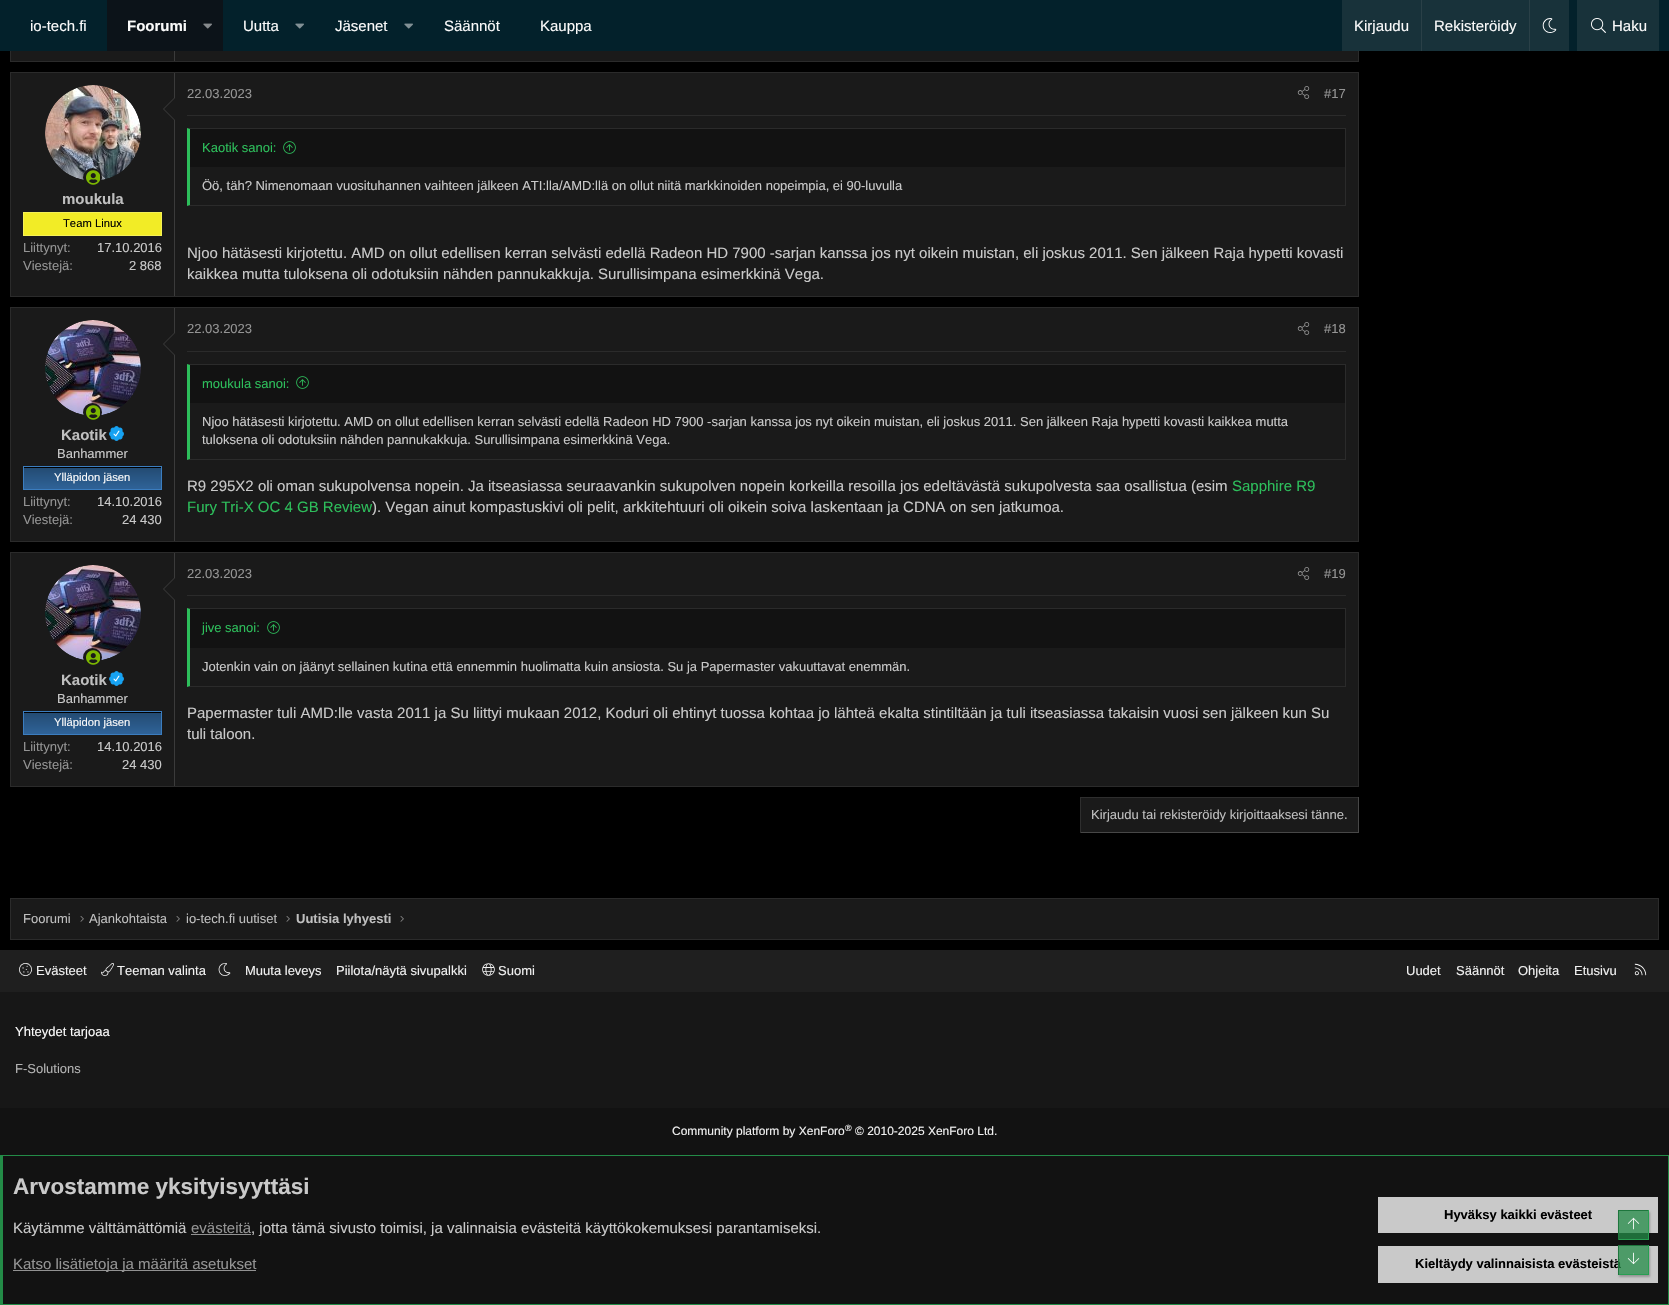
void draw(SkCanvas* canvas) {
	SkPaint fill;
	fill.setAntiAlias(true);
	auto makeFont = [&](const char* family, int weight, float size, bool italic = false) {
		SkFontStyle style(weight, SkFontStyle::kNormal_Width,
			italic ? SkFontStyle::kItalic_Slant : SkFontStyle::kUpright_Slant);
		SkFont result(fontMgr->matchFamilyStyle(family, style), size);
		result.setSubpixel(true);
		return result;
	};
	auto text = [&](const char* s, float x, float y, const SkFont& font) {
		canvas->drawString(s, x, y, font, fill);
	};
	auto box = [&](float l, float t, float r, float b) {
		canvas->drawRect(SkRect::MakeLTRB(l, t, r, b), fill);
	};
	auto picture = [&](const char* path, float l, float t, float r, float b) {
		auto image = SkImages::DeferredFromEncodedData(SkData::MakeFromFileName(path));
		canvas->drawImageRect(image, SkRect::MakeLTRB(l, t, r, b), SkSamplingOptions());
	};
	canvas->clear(0xFF000000);
	fill.setColor(0xFF1A1A1A);
	box(11, 51, 1358, 61);
	fill.setStyle(SkPaint::kStroke_Style);
	fill.setStrokeWidth(1);
	fill.setColor(0xFF2B2B2B);
	canvas->drawRect(SkRect::MakeLTRB(10.5f, -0.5f, 1358.5f, 61.5f), fill);
	fill.setStyle(SkPaint::kFill_Style);
	fill.setColor(0xFF03212B);
	box(0, 0, 1669, 51);
	fill.setColor(0xFF0C1319);
	box(107, 0, 223, 51);
	picture("image0.png", 203, 23, 212, 29);
	picture("image1.png", 295, 23, 304, 29);
	picture("image1.png", 404, 23, 413, 29);
	fill.setColor(0xFF18323A);
	box(1342, 0, 1569, 51);
	fill.setColor(0xFF2A4047);
	box(1421, 0, 1422, 51);
	box(1529, 0, 1530, 51);
	picture("image2.png", 1542, 18, 1557, 33);
	fill.setColor(0xFF18323A);
	box(1577, 0, 1659, 51);
	picture("image3.png", 1591, 18, 1606, 33);
	fill.setColor(0xFF3B3B3B);
	box(174, 51, 175, 61);
	fill.setColor(0xFF1A1A1A);
	canvas->drawRect(SkRect::MakeLTRB(10.5f, 72.5f, 1358.5f, 296.5f), fill);
	fill.setStyle(SkPaint::kStroke_Style);
	fill.setColor(0xFF2B2B2B);
	canvas->drawRect(SkRect::MakeLTRB(10.5f, 72.5f, 1358.5f, 296.5f), fill);
	fill.setStyle(SkPaint::kFill_Style);
	fill.setColor(0xFF3B3B3B);
	box(174, 73, 175, 296);
	picture("image4.png", 45, 85, 141, 180);
	fill.setColor(0xFF1A1A1A);
	canvas->drawCircle(92.5f, 177.5f, 9.5f, fill);
	picture("image5.png", 86, 170, 100, 185);
	fill.setColor(0xFF3B3B3B);
	canvas->drawPath(SkPathBuilder().moveTo(175, 97).lineTo(175, 121).lineTo(163, 109).close().detach(), fill);
	fill.setColor(0xFF1A1A1A);
	canvas->drawPath(SkPathBuilder().moveTo(175, 98).lineTo(175, 120).lineTo(164, 109).close().detach(), fill);
	fill.setColor(0xFFF2EC26);
	canvas->drawRect(SkRect::MakeLTRB(23.5f, 212.5f, 161.5f, 235.5f), fill);
	fill.setStyle(SkPaint::kStroke_Style);
	fill.setColor(0xFFF5F056);
	canvas->drawRect(SkRect::MakeLTRB(23.5f, 212.5f, 161.5f, 235.5f), fill);
	fill.setStyle(SkPaint::kFill_Style);
	fill.setColor(0xFF2B2B2B);
	box(187, 115, 1346, 116);
	picture("image6.png", 1297, 86, 1310, 99);
	canvas->drawPath(SkPathBuilder().moveTo(187, 128).lineTo(1346, 128).lineTo(1345, 129).lineTo(190, 129).close().detach(), fill);
	box(1345, 128, 1346, 206);
	canvas->drawPath(SkPathBuilder().moveTo(1346, 206).lineTo(187, 206).lineTo(190, 205).lineTo(1345, 205).close().detach(), fill);
	fill.setColor(0xFF2DBE5B);
	canvas->drawPath(SkPathBuilder().moveTo(187, 206).lineTo(187, 128).lineTo(190, 129).lineTo(190, 205).close().detach(), fill);
	fill.setColor(0xFF121212);
	box(190, 129, 1345, 167);
	picture("image7.png", 283, 141, 296, 154);
	fill.setColor(0xFF1A1A1A);
	canvas->drawRect(SkRect::MakeLTRB(10.5f, 307.5f, 1358.5f, 541.5f), fill);
	fill.setStyle(SkPaint::kStroke_Style);
	fill.setColor(0xFF2B2B2B);
	canvas->drawRect(SkRect::MakeLTRB(10.5f, 307.5f, 1358.5f, 541.5f), fill);
	fill.setStyle(SkPaint::kFill_Style);
	fill.setColor(0xFF3B3B3B);
	box(174, 308, 175, 541);
	picture("image8.png", 45, 320, 141, 415);
	fill.setColor(0xFF1A1A1A);
	canvas->drawCircle(92.5f, 412.5f, 9.5f, fill);
	picture("image9.png", 86, 405, 100, 420);
	fill.setColor(0xFF3B3B3B);
	canvas->drawPath(SkPathBuilder().moveTo(175, 332).lineTo(175, 356).lineTo(163, 344).close().detach(), fill);
	fill.setColor(0xFF1A1A1A);
	canvas->drawPath(SkPathBuilder().moveTo(175, 333).lineTo(175, 355).lineTo(164, 344).close().detach(), fill);
	picture("image10.png", 109, 426, 124, 441);
	{
		const SkColor colors[] = {0xFF234A71, 0xFF2F6398};
		const float stops[] = {0, 1};
		const SkPoint ends[] = {{93, 467}, {93, 489}};
		fill.setShader(SkGradientShader::MakeLinear(ends, colors, stops, 2, SkTileMode::kClamp));
		fill.setAlpha(255);
	}
	box(24, 468, 161, 489);
	fill.setShader(nullptr);
	fill.setColor(0xFF000000);
	box(24, 467, 161, 468);
	fill.setStyle(SkPaint::kStroke_Style);
	fill.setColor(0xFF3B7DBF);
	canvas->drawRect(SkRect::MakeLTRB(23.5f, 466.5f, 161.5f, 489.5f), fill);
	fill.setStyle(SkPaint::kFill_Style);
	fill.setColor(0xFF2B2B2B);
	box(187, 351, 1346, 352);
	picture("image11.png", 1297, 322, 1310, 335);
	canvas->drawPath(SkPathBuilder().moveTo(187, 364).lineTo(1346, 364).lineTo(1345, 365).lineTo(190, 365).close().detach(), fill);
	box(1345, 364, 1346, 460);
	canvas->drawPath(SkPathBuilder().moveTo(1346, 460).lineTo(187, 460).lineTo(190, 459).lineTo(1345, 459).close().detach(), fill);
	fill.setColor(0xFF2DBE5B);
	canvas->drawPath(SkPathBuilder().moveTo(187, 460).lineTo(187, 364).lineTo(190, 365).lineTo(190, 459).close().detach(), fill);
	fill.setColor(0xFF121212);
	box(190, 365, 1345, 403);
	picture("image7.png", 296, 376, 309, 389);
	fill.setColor(0xFF1A1A1A);
	canvas->drawRect(SkRect::MakeLTRB(10.5f, 552.5f, 1358.5f, 786.5f), fill);
	fill.setStyle(SkPaint::kStroke_Style);
	fill.setColor(0xFF2B2B2B);
	canvas->drawRect(SkRect::MakeLTRB(10.5f, 552.5f, 1358.5f, 786.5f), fill);
	fill.setStyle(SkPaint::kFill_Style);
	fill.setColor(0xFF3B3B3B);
	box(174, 553, 175, 786);
	picture("image12.png", 45, 565, 141, 660);
	fill.setColor(0xFF1A1A1A);
	canvas->drawCircle(92.5f, 657.5f, 9.5f, fill);
	picture("image9.png", 86, 650, 100, 665);
	fill.setColor(0xFF3B3B3B);
	canvas->drawPath(SkPathBuilder().moveTo(175, 577).lineTo(175, 601).lineTo(163, 589).close().detach(), fill);
	fill.setColor(0xFF1A1A1A);
	canvas->drawPath(SkPathBuilder().moveTo(175, 578).lineTo(175, 600).lineTo(164, 589).close().detach(), fill);
	picture("image10.png", 109, 671, 124, 686);
	{
		const SkColor colors[] = {0xFF234A71, 0xFF2F6398};
		const float stops[] = {0, 1};
		const SkPoint ends[] = {{93, 712}, {93, 734}};
		fill.setShader(SkGradientShader::MakeLinear(ends, colors, stops, 2, SkTileMode::kClamp));
		fill.setAlpha(255);
	}
	box(24, 713, 161, 734);
	fill.setShader(nullptr);
	fill.setColor(0xFF000000);
	box(24, 712, 161, 713);
	fill.setStyle(SkPaint::kStroke_Style);
	fill.setColor(0xFF3B7DBF);
	canvas->drawRect(SkRect::MakeLTRB(23.5f, 711.5f, 161.5f, 734.5f), fill);
	fill.setStyle(SkPaint::kFill_Style);
	fill.setColor(0xFF2B2B2B);
	box(187, 595, 1346, 596);
	picture("image6.png", 1297, 567, 1310, 580);
	canvas->drawPath(SkPathBuilder().moveTo(187, 608).lineTo(1346, 608).lineTo(1345, 609).lineTo(190, 609).close().detach(), fill);
	box(1345, 608, 1346, 687);
	canvas->drawPath(SkPathBuilder().moveTo(1346, 687).lineTo(187, 687).lineTo(190, 686).lineTo(1345, 686).close().detach(), fill);
	fill.setColor(0xFF2DBE5B);
	canvas->drawPath(SkPathBuilder().moveTo(187, 687).lineTo(187, 608).lineTo(190, 609).lineTo(190, 686).close().detach(), fill);
	fill.setColor(0xFF121212);
	box(190, 609, 1345, 648);
	picture("image7.png", 267, 621, 280, 634);
	fill.setColor(0xFF1A1A1A);
	box(1081, 798, 1358, 832);
	fill.setColor(0xFF2E2E2E);
	box(1080, 797, 1359, 798);
	fill.setColor(0xFF474747);
	box(1358, 797, 1359, 833);
	box(1080, 832, 1359, 833);
	fill.setColor(0xFF2E2E2E);
	box(1080, 797, 1081, 833);
	fill.setColor(0xFF1A1A1A);
	canvas->drawRect(SkRect::MakeLTRB(10.5f, 898.5f, 1658.5f, 939.5f), fill);
	fill.setStyle(SkPaint::kStroke_Style);
	fill.setColor(0xFF2B2B2B);
	canvas->drawRect(SkRect::MakeLTRB(10.5f, 898.5f, 1658.5f, 939.5f), fill);
	picture("image13.png", 80, 916, 84, 922);
	picture("image13.png", 176, 916, 180, 922);
	picture("image13.png", 286, 916, 290, 922);
	picture("image13.png", 400, 916, 404, 922);
	fill.setStyle(SkPaint::kFill_Style);
	fill.setColor(0xFF1F1F1F);
	box(0, 950, 1669, 992);
	picture("image14.png", 19, 963, 32, 976);
	picture("image15.png", 101, 963, 114, 976);
	picture("image16.png", 218, 963, 231, 976);
	picture("image17.png", 482, 963, 495, 976);
	picture("image18.png", 1634, 963, 1647, 976);
	fill.setColor(0xFF171717);
	box(0, 992, 1669, 1108);
	fill.setColor(0xFF121212);
	box(0, 1108, 1669, 1155);
	box(3, 1156, 1668, 1304);
	fill.setColor(0xFF1F6D3A);
	box(1619, 1233, 1648, 1239);
	fill.setColor(0xFF238B47);
	box(0, 1155, 1669, 1156);
	box(1668, 1155, 1669, 1305);
	box(0, 1304, 1669, 1305);
	box(0, 1155, 3, 1305);
	fill.setColor(0xFF929292);
	box(191, 1234, 251, 1235);
	box(13, 1270, 256, 1271);
	fill.setColor(0xFFC9C9C9);
	box(1378, 1197, 1658, 1233);
	fill.setColor(0xFF4D9B68);
	box(1619, 1211, 1648, 1233);
	fill.setColor(0xFFC9C9C9);
	box(1378, 1246, 1658, 1283);
	canvas->save();
	canvas->clipPath(SkPathBuilder(SkPathFillType::kEvenOdd).moveTo(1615, 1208).lineTo(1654, 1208).lineTo(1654, 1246).lineTo(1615, 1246).close().moveTo(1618, 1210).lineTo(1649, 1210).lineTo(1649, 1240).lineTo(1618, 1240).close().detach(), true);
	fill.setColor(0x40000000);
	fill.setMaskFilter(SkMaskFilter::MakeBlur(kNormal_SkBlurStyle, 1));
	canvas->drawRect(SkRect::MakeLTRB(1619, 1212, 1650, 1242), fill);
	fill.setMaskFilter(nullptr);
	canvas->restore();
	fill.setColor(0xFF1E763D);
	box(1618, 1210, 1649, 1211);
	fill.setColor(0xFF289F52);
	box(1648, 1210, 1649, 1240);
	box(1618, 1239, 1649, 1240);
	fill.setColor(0xFF1E763D);
	box(1618, 1210, 1619, 1240);
	picture("image19.png", 1627, 1217, 1640, 1230);
	canvas->save();
	canvas->clipPath(SkPathBuilder(SkPathFillType::kEvenOdd).moveTo(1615, 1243).lineTo(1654, 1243).lineTo(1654, 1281).lineTo(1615, 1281).close().moveTo(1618, 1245).lineTo(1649, 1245).lineTo(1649, 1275).lineTo(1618, 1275).close().detach(), true);
	fill.setColor(0x40000000);
	fill.setMaskFilter(SkMaskFilter::MakeBlur(kNormal_SkBlurStyle, 1));
	canvas->drawRect(SkRect::MakeLTRB(1619, 1247, 1650, 1277), fill);
	fill.setMaskFilter(nullptr);
	canvas->restore();
	fill.setColor(0xFF1E763D);
	box(1618, 1245, 1649, 1246);
	fill.setColor(0xFF289F52);
	box(1648, 1245, 1649, 1275);
	box(1618, 1274, 1649, 1275);
	auto font1 = makeFont("Liberation Sans", 400, 15);
	fill.setColor(0xFFFAFAFA);
	text("io-tech.fi", 30, 31, font1);
	auto font2 = makeFont("Liberation Sans", 700, 15);
	text("Foorumi", 127, 31, font2);
	text("Uutta", 243, 31, font1);
	text("Jäsenet", 335, 31, font1);
	text("Säännöt", 444, 31, font1);
	text("Kauppa", 540, 31, font1);
	text("Kirjaudu", 1354, 31, font1);
	text("Rekisteröidy", 1434, 31, font1);
	text("Haku", 1612, 31, font1);
	fill.setColor(0xFFBFBFBF);
	text("moukula", 62, 204, font2);
	auto font3 = makeFont("Liberation Sans", 400, 11.25f);
	fill.setColor(0xFF000000);
	text("Team Linux", 63, 227, font3);
	auto font4 = makeFont("Liberation Sans", 400, 13);
	fill.setColor(0xFF949494);
	text("Liittynyt:", 23, 252, font4);
	fill.setColor(0xFFC9C9C9);
	text("17.10.2016", 97, 252, font4);
	fill.setColor(0xFF949494);
	text("Viestejä:", 23, 270, font4);
	fill.setColor(0xFFC9C9C9);
	text("2 868", 129, 270, font4);
	fill.setColor(0xFF949494);
	text("22.03.2023", 187, 98, font4);
	text("#17", 1324, 98, font4);
	fill.setColor(0xFF2DBE5B);
	text("Kaotik sanoi:", 202, 152, font4);
	fill.setColor(0xFFC9C9C9);
	text("Öö, täh? Nimenomaan vuosituhannen vaihteen jälkeen ATI:lla/AMD:llä on ollut niitä markkinoiden nopeimpia, ei 90-luvulla", 202, 190, font4);
	text("Njoo hätäsesti kirjotettu. AMD on ollut edellisen kerran selvästi edellä Radeon HD 7900 -sarjan kanssa jos nyt oikein muistan, eli joskus 2011. Sen jälkeen Raja hypetti kovasti", 187, 258, font1);
	text("kaikkea mutta tuloksena oli odotuksiin nähden pannukakkuja. Surullisimpana esimerkkinä Vega.", 187, 279, font1);
	fill.setColor(0xFFBFBFBF);
	text("Kaotik", 61, 440, font2);
	fill.setColor(0xFFC9C9C9);
	text("Banhammer", 57, 458, font4);
	fill.setColor(0xFFFAFAFA);
	text("Ylläpidon jäsen", 54, 481, font3);
	fill.setColor(0xFF949494);
	text("Liittynyt:", 23, 506, font4);
	fill.setColor(0xFFC9C9C9);
	text("14.10.2016", 97, 506, font4);
	fill.setColor(0xFF949494);
	text("Viestejä:", 23, 524, font4);
	fill.setColor(0xFFC9C9C9);
	text("24 430", 122, 524, font4);
	fill.setColor(0xFF949494);
	text("22.03.2023", 187, 333, font4);
	text("#18", 1324, 333, font4);
	fill.setColor(0xFF2DBE5B);
	text("moukula sanoi:", 202, 388, font4);
	fill.setColor(0xFFC9C9C9);
	text("Njoo hätäsesti kirjotettu. AMD on ollut edellisen kerran selvästi edellä Radeon HD 7900 -sarjan kanssa jos nyt oikein muistan, eli joskus 2011. Sen jälkeen Raja hypetti kovasti kaikkea mutta", 202, 426, font4);
	text("tuloksena oli odotuksiin nähden pannukakkuja. Surullisimpana esimerkkinä Vega.", 202, 444, font4);
	text("R9 295X2 oli oman sukupolvensa nopein. Ja itseasiassa seuraavankin sukupolven nopein korkeilla resoilla jos edeltävästä sukupolvesta saa osallistua (esim", 187, 491, font1);
	fill.setColor(0xFF2DBE5B);
	text("Sapphire R9", 1232, 491, font1);
	text("Fury Tri-X OC 4 GB Review", 187, 512, font1);
	fill.setColor(0xFFC9C9C9);
	text("). Vegan ainut kompastuskivi oli pelit, arkkitehtuuri oli oikein soiva laskentaan ja CDNA on sen jatkumoa.", 372, 512, font1);
	fill.setColor(0xFFBFBFBF);
	text("Kaotik", 61, 685, font2);
	fill.setColor(0xFFC9C9C9);
	text("Banhammer", 57, 703, font4);
	fill.setColor(0xFFFAFAFA);
	text("Ylläpidon jäsen", 54, 726, font3);
	fill.setColor(0xFF949494);
	text("Liittynyt:", 23, 751, font4);
	fill.setColor(0xFFC9C9C9);
	text("14.10.2016", 97, 751, font4);
	fill.setColor(0xFF949494);
	text("Viestejä:", 23, 769, font4);
	fill.setColor(0xFFC9C9C9);
	text("24 430", 122, 769, font4);
	fill.setColor(0xFF949494);
	text("22.03.2023", 187, 578, font4);
	text("#19", 1324, 578, font4);
	fill.setColor(0xFF2DBE5B);
	text("jive sanoi:", 202, 632, font4);
	fill.setColor(0xFFC9C9C9);
	text("Jotenkin vain on jäänyt sellainen kutina että ennemmin huolimatta kuin ansiosta. Su ja Papermaster vakuuttavat enemmän.", 202, 671, font4);
	text("Papermaster tuli AMD:lle vasta 2011 ja Su liittyi mukaan 2012, Koduri oli ehtinyt tuossa kohtaa jo lähteä ekalta stintiltään ja tuli itseasiassa takaisin vuosi sen jälkeen kun Su", 187, 718, font1);
	text("tuli taloon.", 187, 739, font1);
	fill.setColor(0xFFBFBFBF);
	text("Kirjaudu tai rekisteröidy kirjoittaaksesi tänne.", 1091, 819, font4);
	text("Foorumi", 23, 923, font4);
	text("Ajankohtaista", 89, 923, font4);
	text("io-tech.fi uutiset", 186, 923, font4);
	auto font5 = makeFont("Liberation Sans", 700, 13);
	text("Uutisia lyhyesti", 296, 923, font5);
	fill.setColor(0xFFF0F0F0);
	text("Evästeet", 36, 975, font4);
	text("Teeman valinta", 117, 975, font4);
	text("Muuta leveys", 245, 975, font4);
	text("Piilota/näytä sivupalkki", 336, 975, font4);
	text("Suomi", 498, 975, font4);
	text("Uudet", 1406, 975, font4);
	text("Säännöt", 1456, 975, font4);
	text("Ohjeita", 1518, 975, font4);
	text("Etusivu", 1574, 975, font4);
	fill.setColor(0xFFFAFAFA);
	text("Yhteydet tarjoaa", 15, 1036, font4);
	fill.setColor(0xFFB2B2B2);
	text("F-Solutions", 15, 1073, font4);
	auto font6 = makeFont("Liberation Sans", 400, 12);
	fill.setColor(0xFFF0F0F0);
	text("Community platform by XenForo", 672, 1135, font6);
	auto font7 = makeFont("Liberation Sans", 400, 9);
	text("®", 845, 1131, font7);
	text("© 2010-2025 XenForo Ltd.", 855, 1135, font6);
	auto font8 = makeFont("Liberation Sans", 700, 22.5f);
	fill.setColor(0xFFC9C9C9);
	text("Arvostamme yksityisyyttäsi", 13, 1194, font8);
	text("Käytämme välttämättömiä", 13, 1233, font1);
	fill.setColor(0xFF949494);
	text("evästeitä", 191, 1233, font1);
	fill.setColor(0xFFC9C9C9);
	text(", jotta tämä sivusto toimisi, ja valinnaisia evästeitä käyttökokemuksesi parantamiseksi.", 251, 1233, font1);
	fill.setColor(0xFF949494);
	text("Katso lisätietoja ja määritä asetukset", 13, 1269, font1);
	fill.setColor(0xFF000000);
	text("Hyväksy kaikki evästeet", 1444, 1219, font5);
	text("Kieltäydy valinnaisista evästeistä", 1415, 1268, font5);
	fill.setColor(0xBF238B47);
	box(1619, 1246, 1648, 1274);
	fill.setColor(0xFF1E763D);
	box(1618, 1245, 1619, 1275);
	picture("image20.png", 1627, 1252, 1640, 1265);
}
